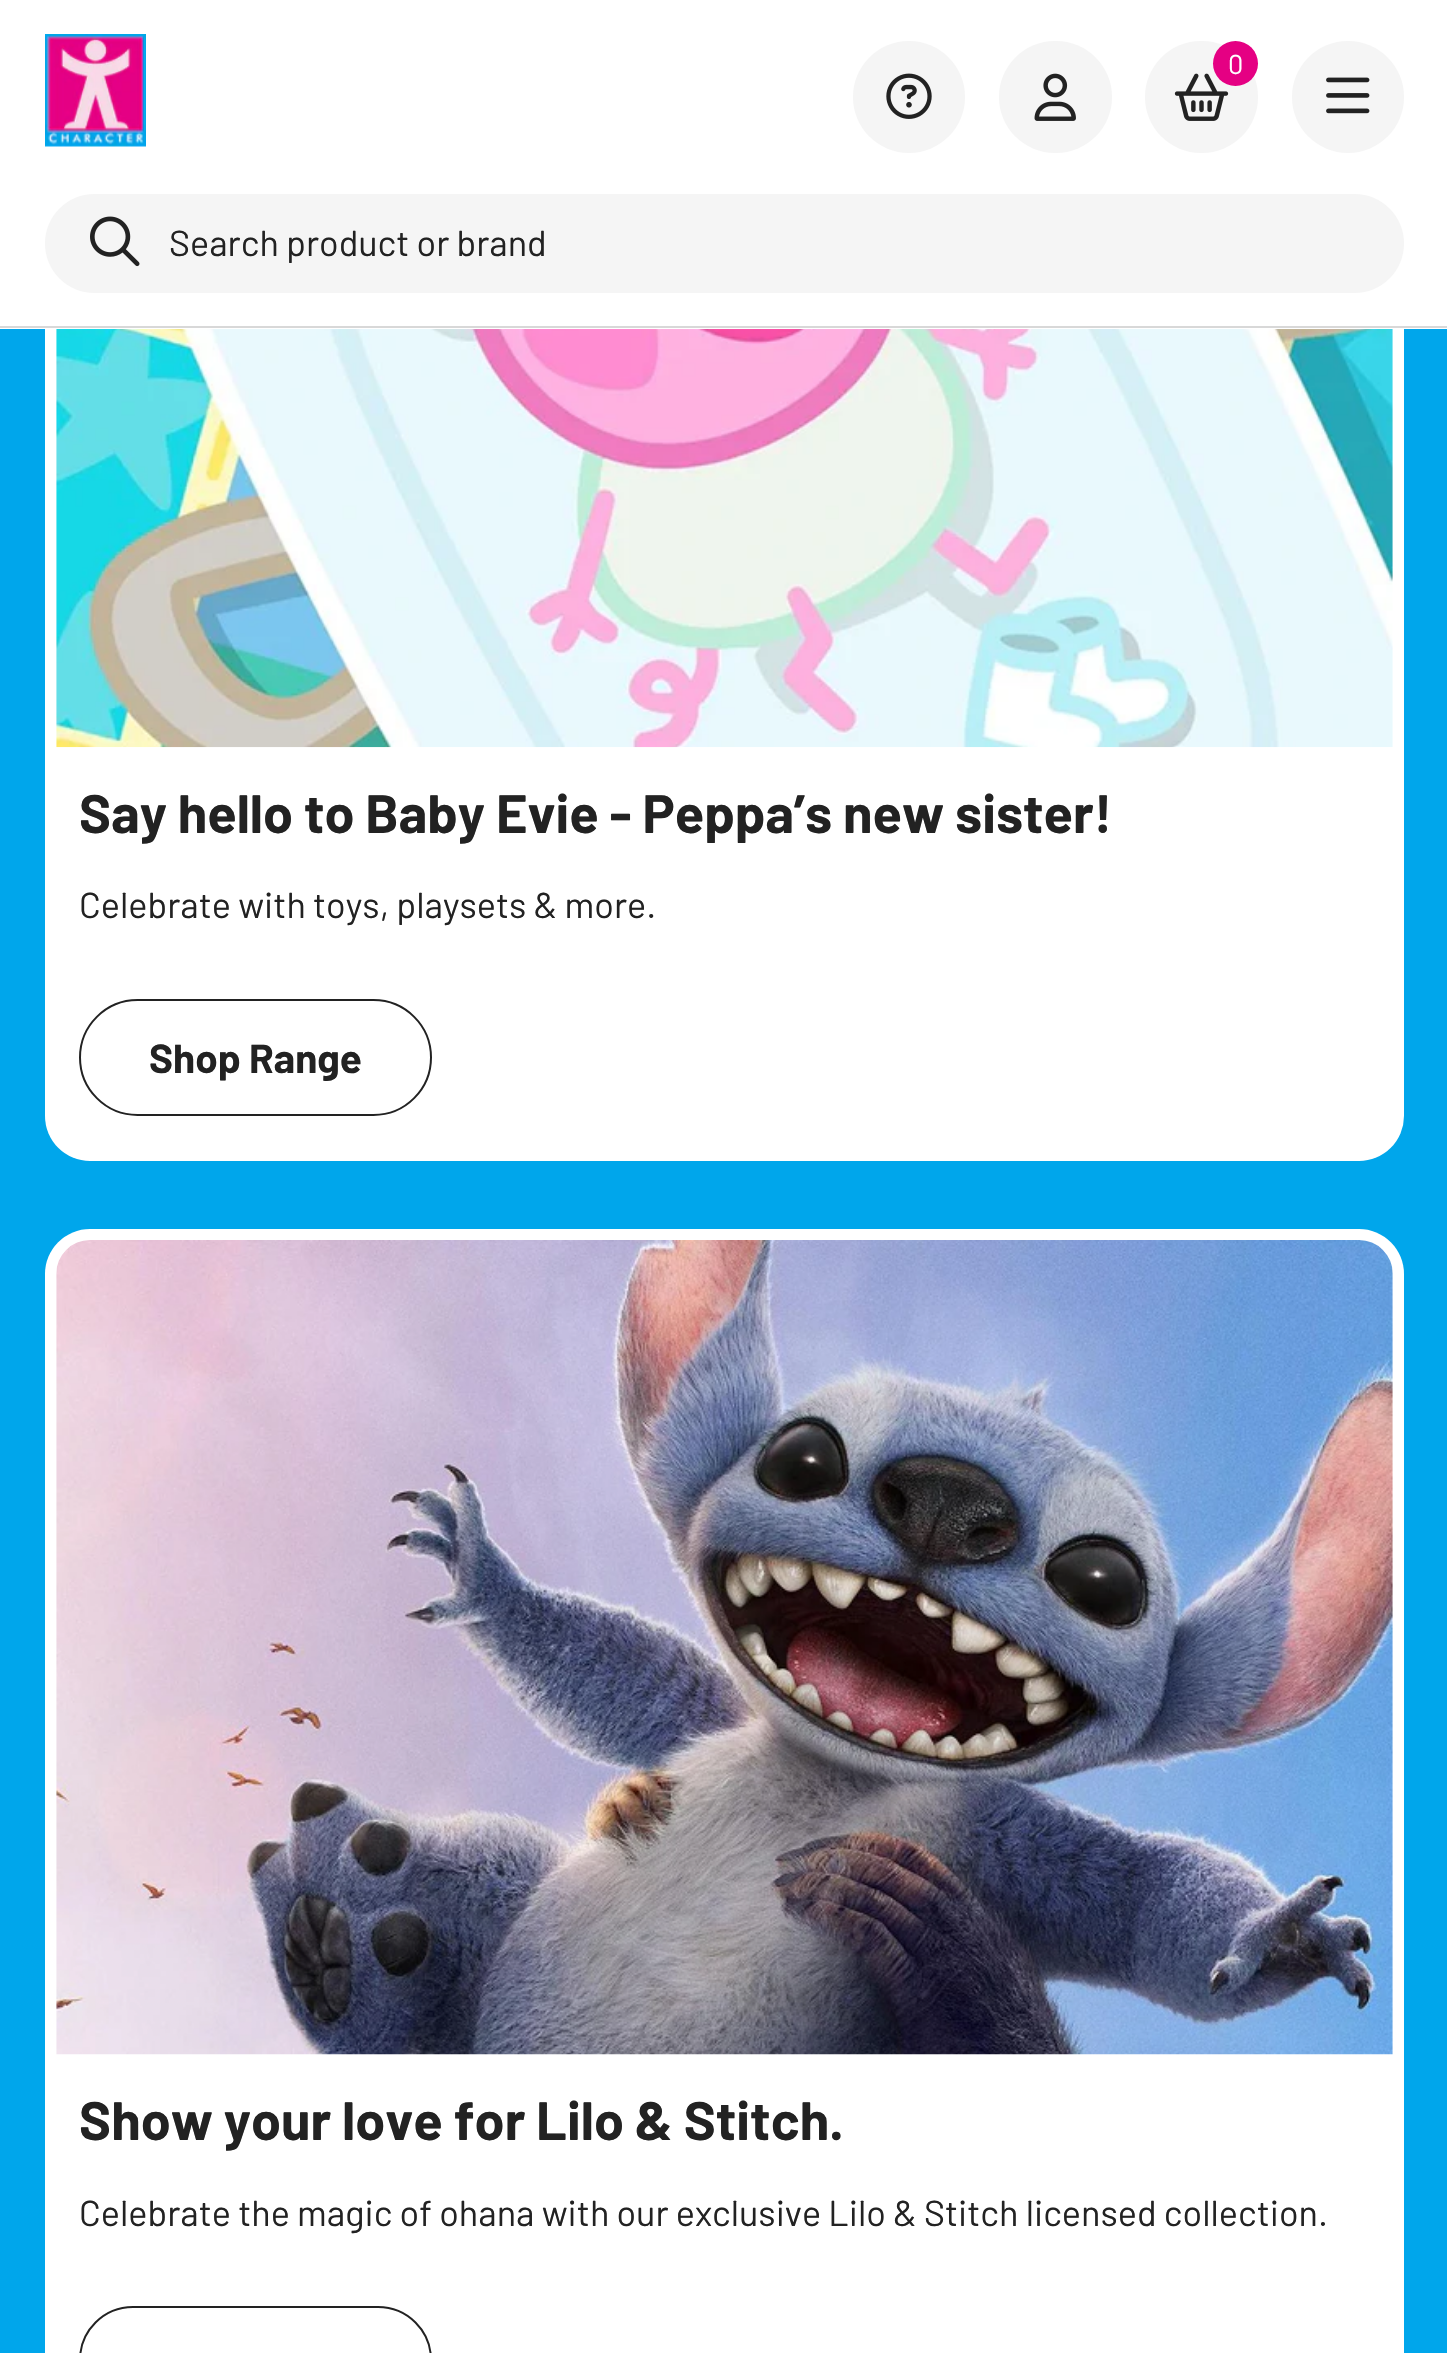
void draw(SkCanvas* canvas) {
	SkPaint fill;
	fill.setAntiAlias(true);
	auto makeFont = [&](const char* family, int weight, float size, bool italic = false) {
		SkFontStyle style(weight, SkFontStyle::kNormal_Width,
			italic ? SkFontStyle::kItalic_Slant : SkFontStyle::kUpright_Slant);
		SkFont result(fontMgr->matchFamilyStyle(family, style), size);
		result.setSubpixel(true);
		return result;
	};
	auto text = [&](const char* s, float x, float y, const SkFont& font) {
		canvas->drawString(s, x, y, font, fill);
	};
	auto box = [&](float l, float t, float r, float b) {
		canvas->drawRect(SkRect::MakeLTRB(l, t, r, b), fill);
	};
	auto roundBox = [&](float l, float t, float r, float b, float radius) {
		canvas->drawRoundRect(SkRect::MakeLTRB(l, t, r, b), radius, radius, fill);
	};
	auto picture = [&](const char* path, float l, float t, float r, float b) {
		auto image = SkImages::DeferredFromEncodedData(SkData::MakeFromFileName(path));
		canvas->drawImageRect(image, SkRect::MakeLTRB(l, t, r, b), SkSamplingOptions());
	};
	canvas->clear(0xFF00A6EB);
	fill.setColor(0xFFFFFFFF);
	roundBox(45, -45, 1404, 1161, 45);
	box(0, 0, 1447, 329);
	fill.setColor(0xFFD8D8D8);
	box(0, 326, 1447, 328);
	picture("image0.png", 45, 34, 146, 147);
	fill.setColor(0xFFF5F5F5);
	canvas->drawCircle(909, 97, 56, fill);
	picture("image1.png", 886, 73, 932, 119);
	roundBox(999, 41, 1112, 153, 56);
	picture("image2.png", 1034, 73, 1076, 121);
	roundBox(1145, 41, 1258, 153, 56);
	picture("image3.png", 1174, 73, 1229, 121);
	fill.setColor(0xFFE50083);
	canvas->drawCircle(1235.5f, 63.5f, 22.5f, fill);
	fill.setColor(0xFFF5F5F5);
	canvas->drawCircle(1348, 97, 56, fill);
	picture("image4.png", 1326, 77, 1370, 114);
	roundBox(45, 194, 1404, 293, 49.5f);
	picture("image5.png", 90, 216, 140, 267);
	picture("image6.png", 56, 329, 1393, 748);
	fill.setStyle(SkPaint::kStroke_Style);
	fill.setStrokeWidth(2);
	fill.setColor(0xFF222222);
	canvas->drawRoundRect(SkRect::MakeLTRB(80, 1000, 431, 1115), 57.5f, 57.5f, fill);
	fill.setStyle(SkPaint::kFill_Style);
	fill.setColor(0xFFFFFFFF);
	roundBox(45, 1229, 1404, 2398, 45);
	picture("image7.png", 56, 1240, 1393, 2055);
	fill.setStyle(SkPaint::kStroke_Style);
	fill.setColor(0xFF222222);
	canvas->drawRoundRect(SkRect::MakeLTRB(80, 2307, 431, 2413), 57.5f, 57.5f, fill);
	auto font1 = makeFont("Barlow", 400, 27);
	fill.setStyle(SkPaint::kFill_Style);
	fill.setColor(0xFFFFFFFF);
	text("0", 1228, 74, font1);
	auto font2 = makeFont("Barlow", 400, 36);
	fill.setColor(0xFF222222);
	text("Search product or brand", 169, 256, font2);
	auto font3 = makeFont("Barlow", 700, 54);
	text("Say hello to Baby Evie - Peppa’s new sister!", 79, 833, font3);
	text("Celebrate with toys, playsets & more.", 79, 918, font2);
	auto font4 = makeFont("Barlow", 700, 40.5f);
	text("Shop Range", 149, 1073, font4);
	text("Show your love for Lilo & Stitch.", 79, 2140, font3);
	text("Celebrate the magic of ohana with our exclusive Lilo & Stitch licensed collection.", 79, 2226, font2);
}
